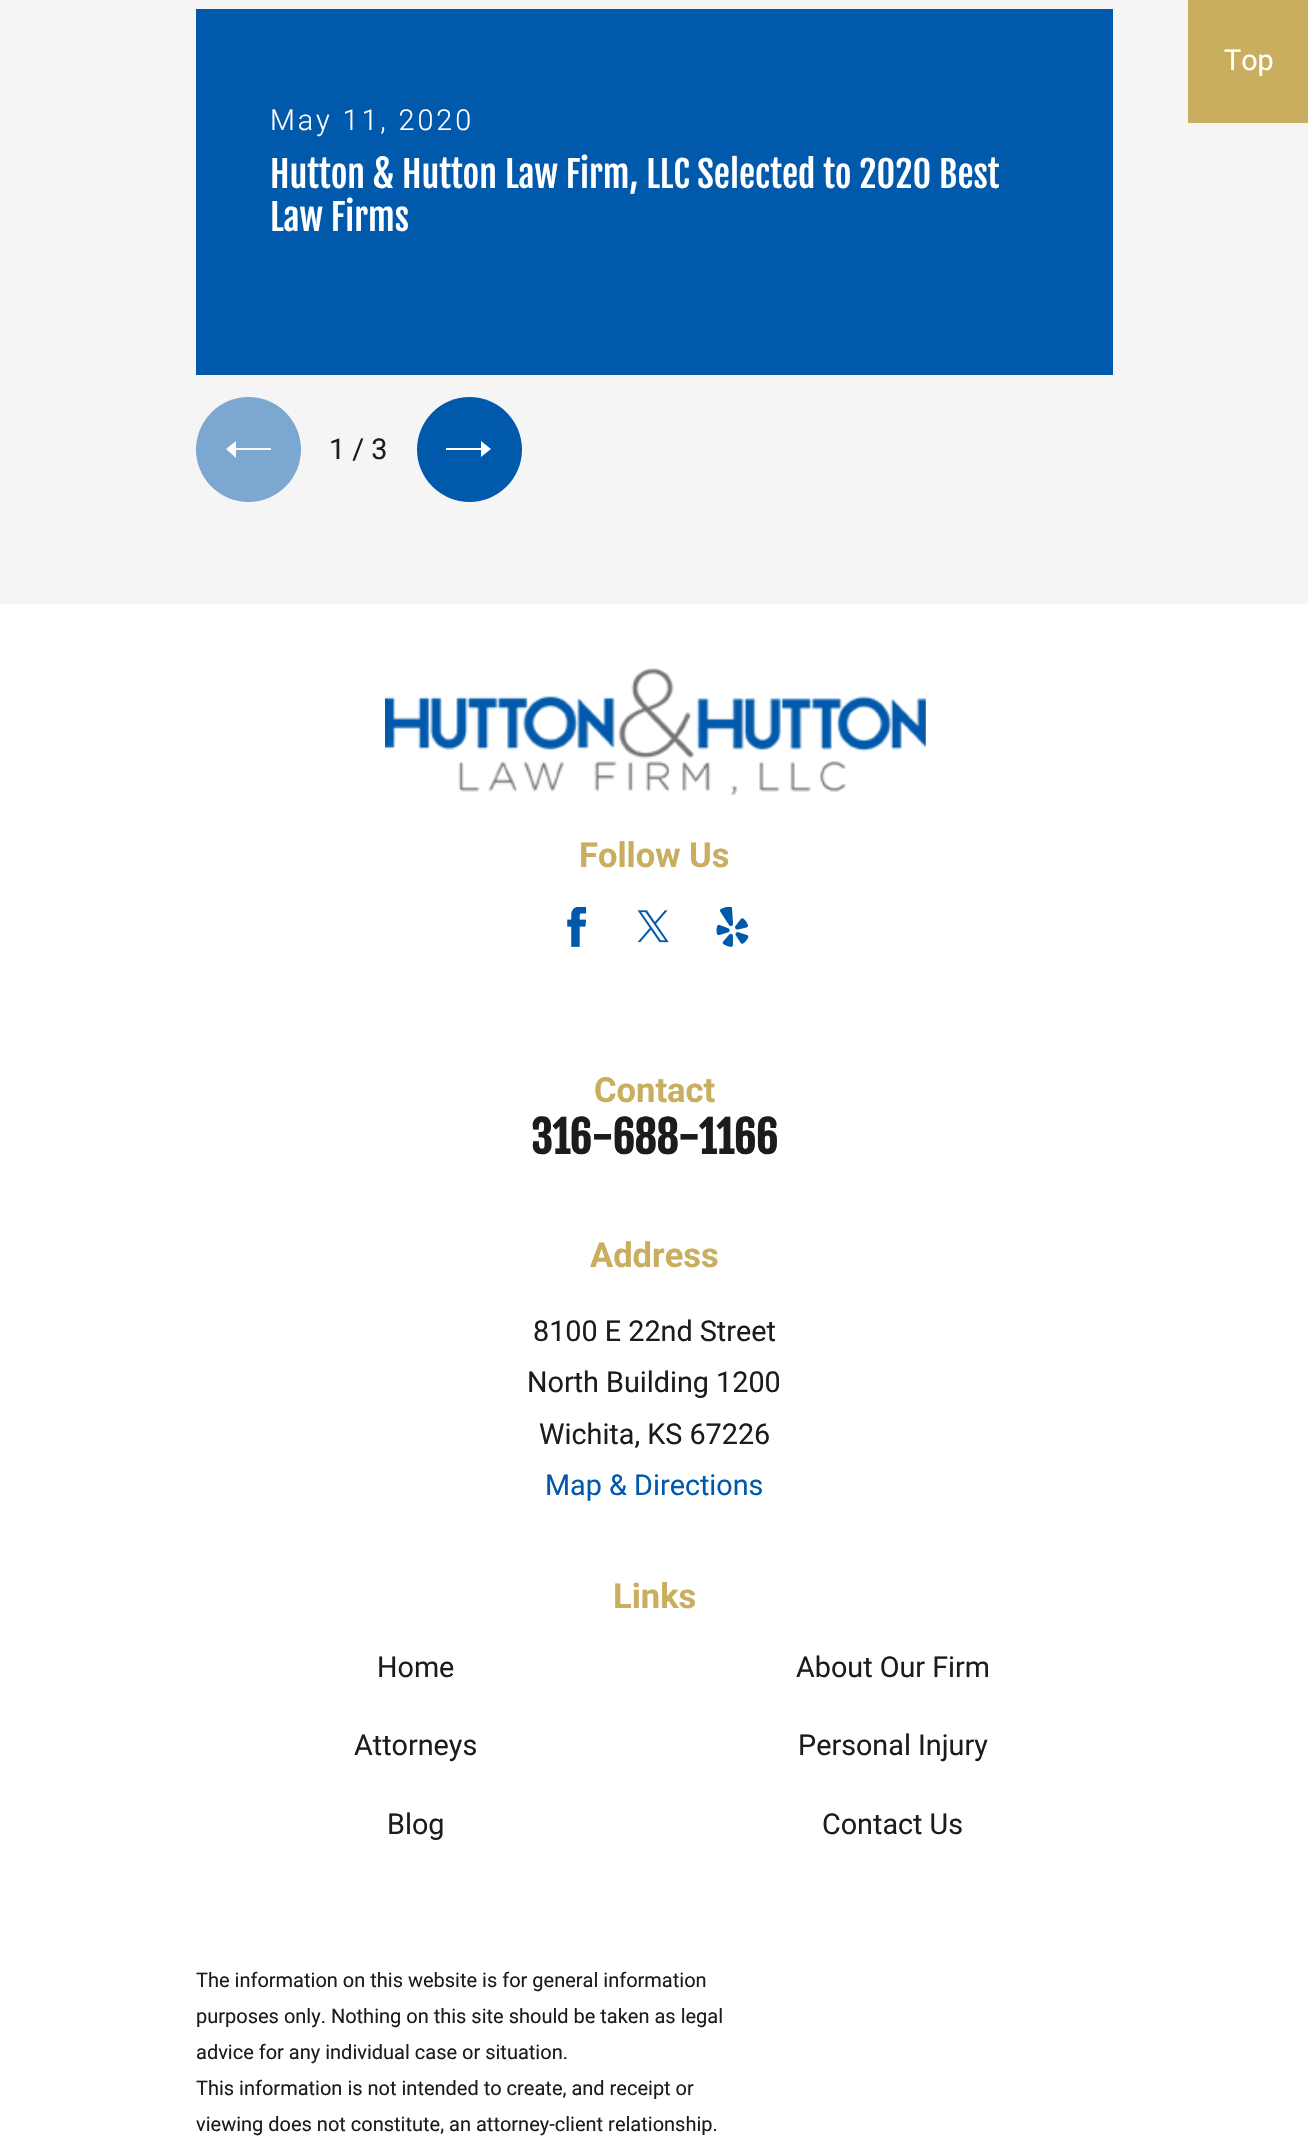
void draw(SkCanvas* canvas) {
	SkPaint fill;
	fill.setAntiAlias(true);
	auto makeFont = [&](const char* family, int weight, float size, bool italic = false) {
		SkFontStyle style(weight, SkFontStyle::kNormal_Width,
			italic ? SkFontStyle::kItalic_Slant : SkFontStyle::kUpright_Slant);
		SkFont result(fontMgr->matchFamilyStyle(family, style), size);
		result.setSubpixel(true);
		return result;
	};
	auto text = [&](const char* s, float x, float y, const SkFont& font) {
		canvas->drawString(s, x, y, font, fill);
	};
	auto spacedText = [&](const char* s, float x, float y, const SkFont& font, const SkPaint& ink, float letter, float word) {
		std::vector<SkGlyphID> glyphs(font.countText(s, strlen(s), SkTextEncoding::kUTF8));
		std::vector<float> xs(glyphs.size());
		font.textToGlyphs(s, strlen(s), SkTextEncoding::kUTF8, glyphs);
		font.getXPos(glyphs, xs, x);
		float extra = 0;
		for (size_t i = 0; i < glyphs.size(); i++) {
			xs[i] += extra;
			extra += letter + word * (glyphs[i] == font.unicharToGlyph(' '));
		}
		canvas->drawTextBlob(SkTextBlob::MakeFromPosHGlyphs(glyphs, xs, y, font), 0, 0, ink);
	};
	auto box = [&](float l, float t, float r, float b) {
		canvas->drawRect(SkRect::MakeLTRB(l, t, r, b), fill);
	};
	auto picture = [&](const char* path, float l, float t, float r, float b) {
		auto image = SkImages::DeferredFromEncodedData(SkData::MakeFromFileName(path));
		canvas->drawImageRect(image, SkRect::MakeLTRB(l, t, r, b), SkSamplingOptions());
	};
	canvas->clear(0xFFFFFFFF);
	fill.setColor(0xFFF5F5F5);
	box(0, 0, 1308, 604);
	fill.setColor(0xFFC9AE5F);
	box(1188, 0, 1308, 123);
	fill.setColor(0xFF0059AB);
	box(196, 9, 1113, 375);
	fill.setColor(0xFF7BA7D0);
	canvas->drawCircle(248.5f, 449.5f, 52.5f, fill);
	fill.setColor(0xFFFAFAFA);
	canvas->drawPath(SkPathBuilder().moveTo(236, 441).lineTo(226, 449).lineTo(236, 458).lineTo(236, 450).lineTo(271, 450).lineTo(271, 448).lineTo(236, 448).close().detach(), fill);
	fill.setColor(0xFF0059AB);
	canvas->drawCircle(469.5f, 449.5f, 52.5f, fill);
	fill.setColor(0xFFFFFFFF);
	canvas->drawPath(SkPathBuilder().moveTo(481, 441).lineTo(491, 449).lineTo(481, 457).lineTo(481, 450).lineTo(446, 450).lineTo(446, 448).lineTo(481, 448).close().detach(), fill);
	picture("image0.png", 385, 668, 926, 795);
	picture("image1.png", 567, 907, 587, 947);
	picture("image2.png", 637, 910, 669, 943);
	picture("image3.png", 716, 907, 749, 947);
	auto font1 = makeFont("Roboto", 400, 28.75f);
	text("Top", 1224, 70, font1);
	auto font2 = makeFont("Roboto", 300, 28.75f);
	spacedText("May 11, 2020", 270, 130, font2, fill, 2.9f, 0);
	auto font3 = makeFont("Fjalla One", 400, 36.1f);
	text("Hutton & Hutton Law Firm, LLC Selected to 2020 Best", 270, 188, font3);
	text("Law Firms", 270, 231, font3);
	fill.setColor(0xFF1C1C1C);
	text("1 / 3", 329, 459, font1);
	auto font4 = makeFont("Roboto", 700, 34.5f);
	fill.setColor(0xFFC9AE5F);
	text("Follow Us", 579, 867, font4);
	text("Contact", 594, 1102, font4);
	auto font5 = makeFont("Fjalla One", 700, 43.25f);
	fill.setColor(0xFF1C1C1C);
	text("316-688-1166", 531, 1154, font5);
	fill.setColor(0xFFC9AE5F);
	text("Address", 590, 1267, font4);
	fill.setColor(0xFF1C1C1C);
	text("8100 E 22nd Street", 533, 1341, font1);
	text("North Building 1200", 527, 1392, font1);
	text("Wichita, KS 67226", 539, 1444, font1);
	fill.setColor(0xFF0059AB);
	text("Map & Directions", 545, 1495, font1);
	fill.setColor(0xFFC9AE5F);
	text("Links", 613, 1608, font4);
	fill.setColor(0xFF1C1C1C);
	text("Home", 377, 1677, font1);
	text("About Our Firm", 796, 1677, font1);
	text("Attorneys", 354, 1755, font1);
	text("Personal Injury", 798, 1755, font1);
	text("Blog", 387, 1834, font1);
	text("Contact Us", 822, 1834, font1);
	auto font6 = makeFont("Roboto", 400, 20);
	text("The information on this website is for general information", 196, 1987, font6);
	text("purposes only. Nothing on this site should be taken as legal", 196, 2023, font6);
	text("advice for any individual case or situation.", 196, 2059, font6);
	text("This information is not intended to create, and receipt or", 196, 2095, font6);
	text("viewing does not constitute, an attorney-client relationship.", 196, 2131, font6);
}
